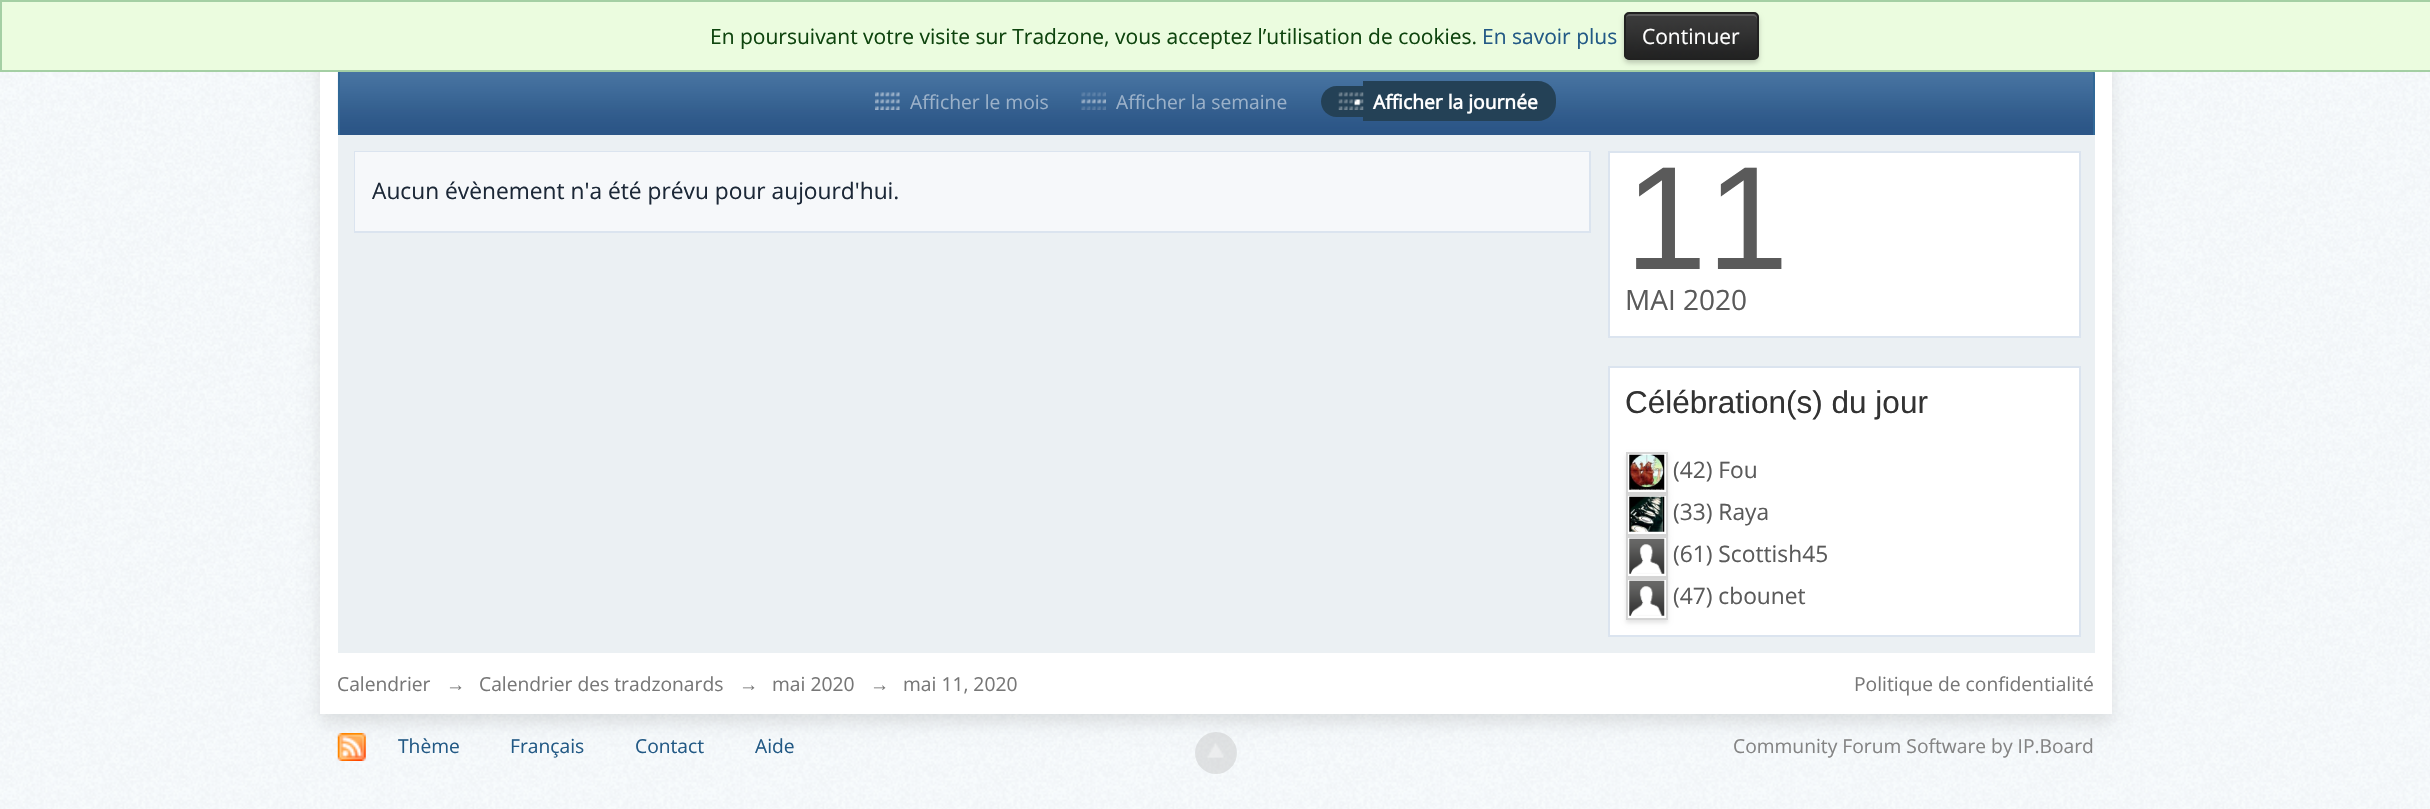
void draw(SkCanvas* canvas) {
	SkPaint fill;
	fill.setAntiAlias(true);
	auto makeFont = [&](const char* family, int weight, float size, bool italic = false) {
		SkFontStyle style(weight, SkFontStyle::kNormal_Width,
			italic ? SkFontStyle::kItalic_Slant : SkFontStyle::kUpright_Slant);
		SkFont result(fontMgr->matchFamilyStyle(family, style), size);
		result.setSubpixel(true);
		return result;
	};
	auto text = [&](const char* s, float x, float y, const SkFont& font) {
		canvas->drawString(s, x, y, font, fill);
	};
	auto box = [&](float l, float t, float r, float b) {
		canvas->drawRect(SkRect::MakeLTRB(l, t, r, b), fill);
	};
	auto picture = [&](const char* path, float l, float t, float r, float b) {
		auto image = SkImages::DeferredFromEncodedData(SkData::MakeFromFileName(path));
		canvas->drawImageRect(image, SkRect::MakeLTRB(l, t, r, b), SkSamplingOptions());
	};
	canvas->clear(0xFFFFFFFF);
	picture("image0.png", 0, 72, 2430, 809);
	fill.setColor(0x1A000000);
	fill.setMaskFilter(SkMaskFilter::MakeBlur(kNormal_SkBlurStyle, 8));
	canvas->drawRect(SkRect::MakeLTRB(320, -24, 2112, 723), fill);
	fill.setMaskFilter(nullptr);
	fill.setColor(0xFFFFFFFF);
	box(320, 72, 2112, 714);
	fill.setColor(0xFF2C5687);
	box(340, 129, 2093, 135);
	picture("image2.png", 337, 72, 2095, 130);
	fill.setColor(0xFF316897);
	canvas->drawPath(SkPathBuilder(SkPathFillType::kEvenOdd).moveTo(345, 66).lineTo(2088, 66).cubicTo(2092, 66, 2095, 70, 2095, 74).lineTo(2095, 135).lineTo(338, 135).lineTo(338, 74).cubicTo(338, 70, 341, 66, 345, 66).close().moveTo(345, 68).lineTo(2088, 68).cubicTo(2091, 68, 2093, 71, 2093, 74).lineTo(2093, 135).lineTo(340, 135).lineTo(340, 74).cubicTo(340, 71, 342, 68, 345, 68).close().detach(), fill);
	fill.setColor(0xFFEBFCDF);
	canvas->drawRect(SkRect::MakeLTRB(1, 1, 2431, 71), fill);
	fill.setStyle(SkPaint::kStroke_Style);
	fill.setStrokeWidth(2);
	fill.setColor(0xFFA4CFA4);
	canvas->drawRect(SkRect::MakeLTRB(1, 1, 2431, 71), fill);
	fill.setStyle(SkPaint::kFill_Style);
	fill.setColor(0x33000000);
	fill.setMaskFilter(SkMaskFilter::MakeBlur(kNormal_SkBlurStyle, 2.5f));
	canvas->drawRoundRect(SkRect::MakeLTRB(1624, 16, 1759, 63), 5, 5, fill);
	fill.setMaskFilter(nullptr);
	picture("image1.png", 1624, 14, 1759, 60);
	fill.setColor(0xFF5C5C5C);
	canvas->drawPath(SkPathBuilder().moveTo(1629, 16).lineTo(1754, 16).lineTo(1756, 17).lineTo(1757, 19).lineTo(1757, 18).cubicTo(1757, 16, 1755, 14, 1753, 14).lineTo(1630, 14).cubicTo(1628, 14, 1626, 16, 1626, 18).lineTo(1626, 19).cubicTo(1626, 17, 1627, 16, 1629, 16).close().detach(), fill);
	fill.setStyle(SkPaint::kStroke_Style);
	fill.setColor(0xFF212121);
	canvas->drawRoundRect(SkRect::MakeLTRB(1625, 13, 1758, 59), 4, 4, fill);
	picture("image3.png", 875, 92, 900, 110);
	picture("image4.png", 1081, 92, 1106, 110);
	fill.setStyle(SkPaint::kFill_Style);
	fill.setColor(0xFF244156);
	canvas->drawPath(SkPathBuilder().moveTo(1336.5f, 86).lineTo(1363, 86).lineTo(1363, 117).lineTo(1336.5f, 117).cubicTo(1328, 117, 1321, 110, 1321, 101.5f).cubicTo(1321, 93, 1328, 86, 1336.5f, 86).close().detach(), fill);
	canvas->drawPath(SkPathBuilder().moveTo(1363, 81).lineTo(1538, 81).cubicTo(1548, 81, 1556, 89, 1556, 99).lineTo(1556, 103).cubicTo(1556, 113, 1548, 121, 1538, 121).lineTo(1363, 121).close().detach(), fill);
	picture("image5.png", 1338, 92, 1364, 110);
	fill.setColor(0xFFEBF0F3);
	box(338, 135, 2095, 653);
	fill.setStyle(SkPaint::kStroke_Style);
	fill.setColor(0xFFDBE4EF);
	canvas->drawRect(SkRect::MakeLTRB(355, 152, 1590, 232), fill);
	fill.setStyle(SkPaint::kFill_Style);
	fill.setColor(0xFFF6F8FA);
	box(355, 152, 1589, 231);
	fill.setColor(0xFFFFFFFF);
	canvas->drawRect(SkRect::MakeLTRB(1609, 152, 2080, 337), fill);
	fill.setStyle(SkPaint::kStroke_Style);
	fill.setColor(0xFFDBE4EF);
	canvas->drawRect(SkRect::MakeLTRB(1609, 152, 2080, 337), fill);
	fill.setStyle(SkPaint::kFill_Style);
	fill.setColor(0xFFFFFFFF);
	canvas->drawRect(SkRect::MakeLTRB(1609, 367, 2080, 636), fill);
	fill.setStyle(SkPaint::kStroke_Style);
	fill.setColor(0xFFDBE4EF);
	canvas->drawRect(SkRect::MakeLTRB(1609, 367, 2080, 636), fill);
	fill.setStyle(SkPaint::kFill_Style);
	fill.setColor(0x1A000000);
	fill.setMaskFilter(SkMaskFilter::MakeBlur(kNormal_SkBlurStyle, 2));
	canvas->drawRect(SkRect::MakeLTRB(1626, 455, 1668, 497), fill);
	fill.setMaskFilter(nullptr);
	fill.setColor(0xFFFFFFFF);
	canvas->drawRect(SkRect::MakeLTRB(1627, 453, 1667, 493), fill);
	fill.setStyle(SkPaint::kStroke_Style);
	fill.setColor(0xFFD5D5D5);
	canvas->drawRect(SkRect::MakeLTRB(1627, 453, 1667, 493), fill);
	picture("image6.png", 1629, 454, 1665, 490);
	fill.setStyle(SkPaint::kFill_Style);
	fill.setColor(0x1A000000);
	fill.setMaskFilter(SkMaskFilter::MakeBlur(kNormal_SkBlurStyle, 2));
	canvas->drawRect(SkRect::MakeLTRB(1626, 497, 1668, 539), fill);
	fill.setMaskFilter(nullptr);
	fill.setColor(0xFFFFFFFF);
	canvas->drawRect(SkRect::MakeLTRB(1627, 495, 1667, 535), fill);
	fill.setStyle(SkPaint::kStroke_Style);
	fill.setColor(0xFFD5D5D5);
	canvas->drawRect(SkRect::MakeLTRB(1627, 495, 1667, 535), fill);
	picture("image7.png", 1629, 496, 1665, 532);
	fill.setStyle(SkPaint::kFill_Style);
	fill.setColor(0x1A000000);
	fill.setMaskFilter(SkMaskFilter::MakeBlur(kNormal_SkBlurStyle, 2));
	canvas->drawRect(SkRect::MakeLTRB(1626, 539, 1668, 581), fill);
	fill.setMaskFilter(nullptr);
	fill.setColor(0xFFFFFFFF);
	canvas->drawRect(SkRect::MakeLTRB(1627, 537, 1667, 577), fill);
	fill.setStyle(SkPaint::kStroke_Style);
	fill.setColor(0xFFD5D5D5);
	canvas->drawRect(SkRect::MakeLTRB(1627, 537, 1667, 577), fill);
	picture("image8.png", 1629, 538, 1665, 574);
	fill.setStyle(SkPaint::kFill_Style);
	fill.setColor(0x1A000000);
	fill.setMaskFilter(SkMaskFilter::MakeBlur(kNormal_SkBlurStyle, 2));
	canvas->drawRect(SkRect::MakeLTRB(1626, 581, 1668, 623), fill);
	fill.setMaskFilter(nullptr);
	fill.setColor(0xFFFFFFFF);
	canvas->drawRect(SkRect::MakeLTRB(1627, 579, 1667, 619), fill);
	fill.setStyle(SkPaint::kStroke_Style);
	fill.setColor(0xFFD5D5D5);
	canvas->drawRect(SkRect::MakeLTRB(1627, 579, 1667, 619), fill);
	picture("image8.png", 1629, 580, 1665, 616);
	picture("image9.png", 337, 733, 366, 761);
	fill.setStyle(SkPaint::kFill_Style);
	fill.setColor(0x66BDBDBD);
	canvas->drawCircle(1216, 753, 21, fill);
	picture("image10.png", 1207, 743, 1224, 758);
	auto font1 = makeFont("Open Sans", 400, 21);
	fill.setColor(0xFF0E440E);
	text("En poursuivant votre visite sur Tradzone, vous acceptez l’utilisation de cookies.", 710, 44, font1);
	fill.setColor(0xFF225985);
	text("En savoir plus", 1482, 44, font1);
	fill.setColor(0xFFFFFFFF);
	text("Continuer", 1642, 44, font1);
	auto font2 = makeFont("Open Sans", 400, 19.25f);
	fill.setColor(0xFF9BB1C9);
	text("Afficher le mois", 910, 109, font2);
	text("Afficher la semaine", 1116, 109, font2);
	auto font3 = makeFont("Open Sans", 700, 19.25f);
	fill.setColor(0xFFFFFFFF);
	text("Afficher la journée", 1373, 109, font3);
	auto font4 = makeFont("Open Sans", 400, 22.75f);
	fill.setColor(0xFF1C2837);
	text("Aucun évènement n'a été prévu pour aujourd'hui.", 372, 199, font4);
	auto font5 = makeFont("Liberation Sans", 400, 147);
	fill.setColor(0xFF5A5A5A);
	text("11", 1625, 269, font5);
	auto font6 = makeFont("Open Sans", 400, 28);
	text("MAI 2020", 1625, 310, font6);
	auto font7 = makeFont("Liberation Sans", 400, 31.5f);
	fill.setColor(0xFF323232);
	text("Célébration(s) du jour", 1625, 413, font7);
	fill.setColor(0xFF5A5A5A);
	text("(42) Fou", 1673, 478, font4);
	text("(33) Raya", 1673, 520, font4);
	text("(61) Scottish45", 1673, 562, font4);
	text("(47) cbounet", 1673, 604, font4);
	fill.setColor(0xFF777777);
	text("Calendrier", 337, 691, font2);
	auto font8 = makeFont("Liberation Sans", 400, 19.25f);
	text("→", 446, 691, font8);
	text("Calendrier des tradzonards", 479, 691, font2);
	text("→", 739, 691, font8);
	text("mai 2020", 772, 691, font2);
	text("→", 870, 691, font8);
	text("mai 11, 2020", 903, 691, font2);
	text("Politique de confidentialité", 1854, 691, font2);
	fill.setColor(0xFF225985);
	text("Thème", 398, 753, font2);
	text("Français", 510, 753, font2);
	text("Contact", 635, 753, font2);
	text("Aide", 755, 753, font2);
	fill.setColor(0xFF848484);
	text("Community Forum Software by IP.Board", 1733, 753, font2);
}
